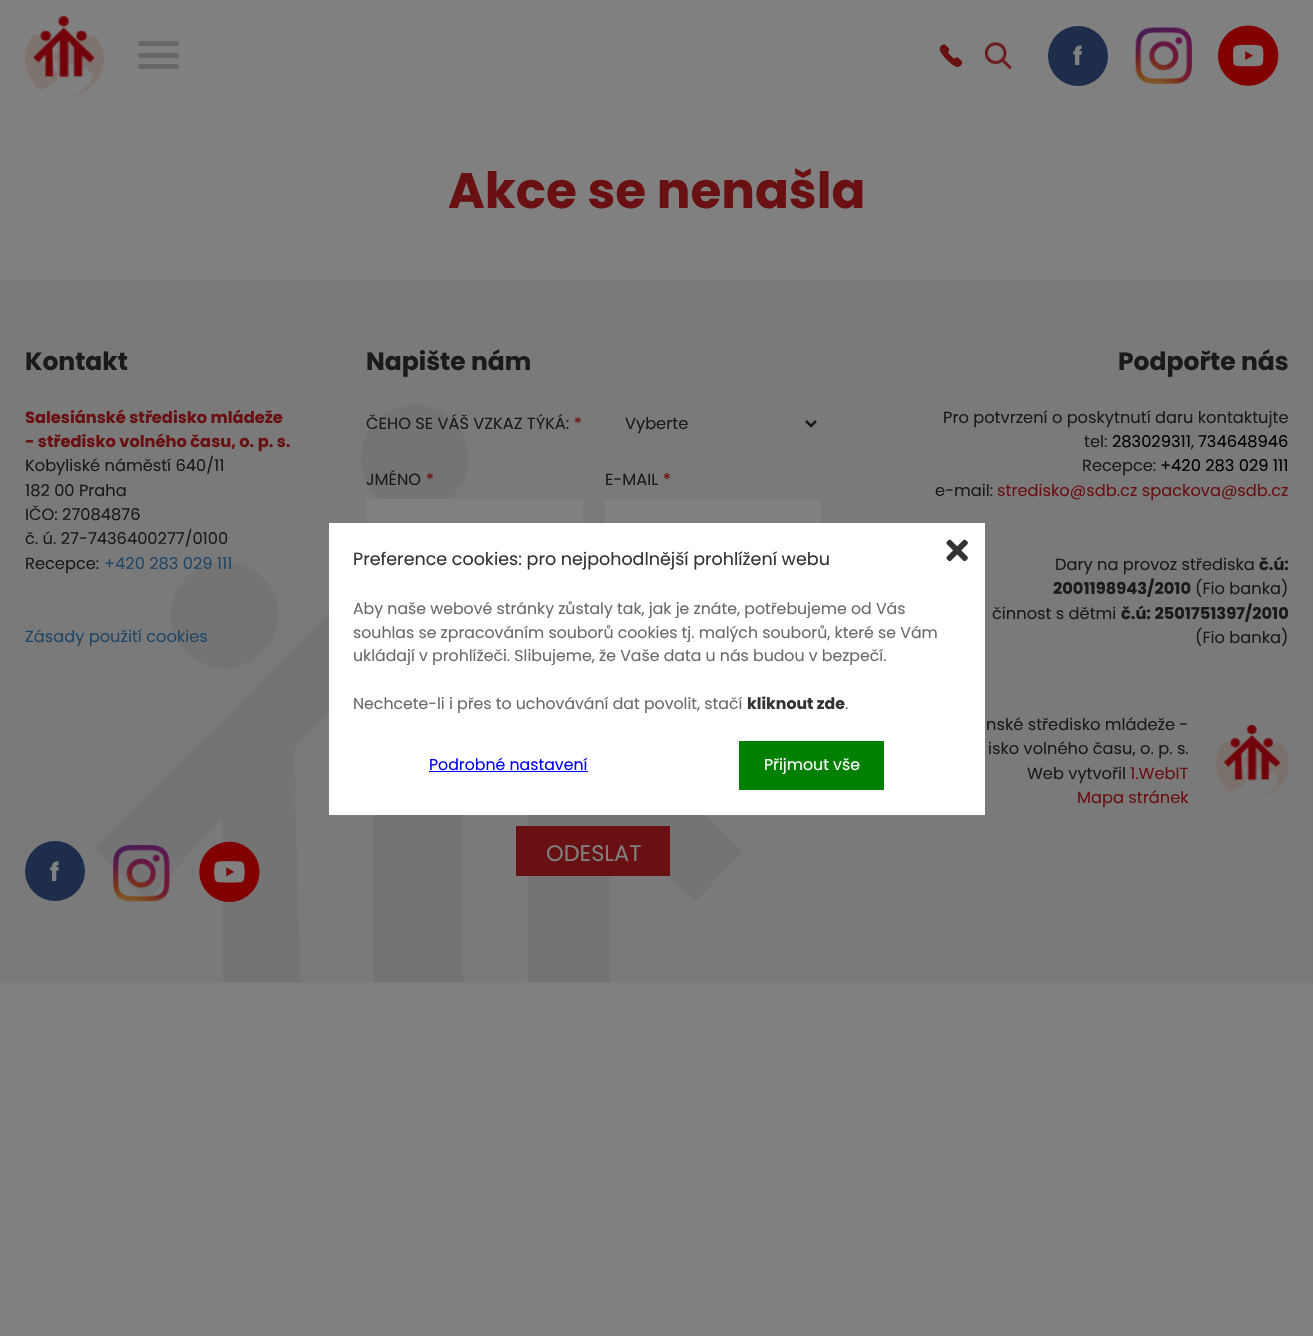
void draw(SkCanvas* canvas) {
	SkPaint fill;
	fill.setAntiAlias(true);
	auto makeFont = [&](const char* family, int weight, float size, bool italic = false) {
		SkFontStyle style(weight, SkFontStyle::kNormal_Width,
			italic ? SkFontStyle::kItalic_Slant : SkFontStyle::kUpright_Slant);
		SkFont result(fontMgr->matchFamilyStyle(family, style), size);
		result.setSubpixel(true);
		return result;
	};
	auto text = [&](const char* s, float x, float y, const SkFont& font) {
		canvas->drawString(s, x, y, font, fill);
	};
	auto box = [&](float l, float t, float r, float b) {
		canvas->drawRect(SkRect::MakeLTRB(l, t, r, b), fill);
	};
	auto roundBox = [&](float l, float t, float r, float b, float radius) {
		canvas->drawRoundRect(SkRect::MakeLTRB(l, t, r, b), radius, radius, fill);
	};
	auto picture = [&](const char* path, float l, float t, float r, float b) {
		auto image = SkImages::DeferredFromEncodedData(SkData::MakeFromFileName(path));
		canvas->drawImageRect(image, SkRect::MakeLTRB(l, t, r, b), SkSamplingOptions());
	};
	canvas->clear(0xFF808080);
	picture("image0.png", 25, 16, 104, 96);
	fill.setColor(0xFF676767);
	roundBox(138, 41, 179, 46, 2.5f);
	roundBox(138, 53, 179, 58, 2.5f);
	roundBox(138, 64, 179, 69, 2.5f);
	picture("image1.png", 939, 44, 963, 67);
	picture("image2.png", 985, 42, 1012, 69);
	fill.setColor(0xFF1E2D4C);
	canvas->drawCircle(1078, 56, 30, fill);
	picture("image3.png", 1135, 27, 1192, 84);
	picture("image4.png", 1217, 25, 1279, 86);
	fill.setColor(0xFF7A7A7A);
	box(0, 280, 1313, 983);
	picture("image5.png", 94, 405, 743, 982);
	fill.setColor(0xFF1E2D4C);
	canvas->drawCircle(55, 871, 30, fill);
	picture("image6.png", 113, 845, 170, 902);
	picture("image7.png", 199, 841, 260, 903);
	fill.setStyle(SkPaint::kStroke_Style);
	fill.setStrokeWidth(2.5f);
	fill.setColor(0xFF1A1A1A);
	canvas->drawPath(SkPathBuilder().moveTo(806, 421).lineTo(811, 426).lineTo(816, 421).detach(), fill);
	fill.setStyle(SkPaint::kFill_Style);
	fill.setColor(0xFF808080);
	box(366, 499, 583, 523);
	box(605, 499, 821, 523);
	fill.setColor(0xFF691012);
	box(516, 826, 670, 876);
	picture("image8.png", 1216, 725, 1289, 798);
	fill.setColor(0xFFFFFFFF);
	box(329, 523, 985, 815);
	picture("image9.png", 946, 539, 968, 562);
	fill.setColor(0xFF0000FF);
	box(429, 771, 588, 772);
	fill.setColor(0xFF008000);
	box(739, 741, 884, 790);
	auto font1 = makeFont("Poppins", 700, 25);
	fill.setColor(0xFF808080);
	text("f", 1073, 65, font1);
	auto font2 = makeFont("Poppins", 700, 50);
	fill.setColor(0xFF691012);
	text("Akce se nenašla", 448, 208, font2);
	fill.setColor(0xFF1A1A1A);
	text("Kontakt", 25, 370, font1);
	auto font3 = makeFont("Poppins", 700, 16.25f);
	fill.setColor(0xFF691012);
	text("Salesiánské středisko mládeže", 25, 423, font3);
	text("- středisko volného času, o. p. s.", 25, 447, font3);
	auto font4 = makeFont("Poppins", 400, 16.25f);
	fill.setColor(0xFF1A1A1A);
	text("Kobyliské náměstí 640/11", 25, 471, font4);
	text("182 00 Praha", 25, 496, font4);
	text("IČO: 27084876", 25, 520, font4);
	text("č. ú. 27-7436400277/0100", 25, 544, font4);
	text("Recepce:", 25, 569, font4);
	fill.setColor(0xFF214665);
	text("+420 283 029 111", 104, 569, font4);
	text("Zásady použití cookies", 25, 642, font4);
	fill.setColor(0xFF808080);
	text("f", 50, 881, font1);
	fill.setColor(0xFF1A1A1A);
	text("Napište nám", 366, 370, font1);
	text("ČEHO SE VÁŠ VZKAZ TÝKÁ:", 366, 429, font4);
	fill.setColor(0xFF691012);
	text("*", 574, 429, font4);
	fill.setColor(0xFF1A1A1A);
	text("Vyberte", 625, 429, font4);
	text("JMÉNO", 366, 485, font4);
	fill.setColor(0xFF691012);
	text("*", 426, 485, font4);
	fill.setColor(0xFF1A1A1A);
	text("E-MAIL", 605, 485, font4);
	fill.setColor(0xFF691012);
	text("*", 663, 485, font4);
	auto font5 = makeFont("Poppins", 400, 22.5f);
	fill.setColor(0xFF808080);
	text("ODESLAT", 546, 861, font5);
	fill.setColor(0xFF1A1A1A);
	text("Podpořte nás", 1118, 370, font1);
	text("Pro potvrzení o poskytnutí daru kontaktujte", 943, 423, font4);
	text("tel:", 1084, 447, font4);
	fill.setColor(0xFF000000);
	text("283029311", 1112, 447, font4);
	fill.setColor(0xFF1A1A1A);
	text(",", 1191, 447, font4);
	fill.setColor(0xFF000000);
	text("734648946", 1198, 447, font4);
	fill.setColor(0xFF1A1A1A);
	text("Recepce:", 1082, 471, font4);
	fill.setColor(0xFF000000);
	text("+420 283 029 111", 1160, 471, font4);
	fill.setColor(0xFF1A1A1A);
	text("e-mail:", 935, 496, font4);
	fill.setColor(0xFF691012);
	text("stredisko@sdb.cz spackova@sdb.cz", 997, 496, font4);
	fill.setColor(0xFF1A1A1A);
	text("Dary na provoz střediska", 1055, 570, font4);
	text("č.ú:", 1259, 570, font3);
	text("2001198943/2010", 1053, 594, font3);
	text("(Fio banka)", 1195, 594, font4);
	text("činnost s dětmi", 992, 619, font4);
	text("č.ú: 2501751397/2010", 1121, 619, font3);
	text("(Fio banka)", 1195, 643, font4);
	text("nské středisko mládeže -", 986, 730, font4);
	text("isko volného času, o. p. s.", 988, 754, font4);
	text("Web vytvořil", 1027, 779, font4);
	fill.setColor(0xFF691012);
	text("1.WebIT", 1130, 779, font4);
	text("Mapa stránek", 1077, 803, font4);
	auto font6 = makeFont("Poppins", 400, 17.5f);
	fill.setColor(0xFF333333);
	text("Preference cookies: pro nejpohodlnější prohlížení webu", 353, 565, font6);
	auto font7 = makeFont("Poppins", 400, 15.75f);
	fill.setColor(0xFF696969);
	text("Aby naše webové stránky zůstaly tak, jak je znáte, potřebujeme od Vás", 353, 614, font7);
	text("souhlas se zpracováním souborů cookies tj. malých souborů, které se Vám", 353, 638, font7);
	text("ukládají v prohlížeči. Slibujeme, že Vaše data u nás budou v bezpečí.", 353, 661, font7);
	text("Nechcete-li i přes to uchovávání dat povolit, stačí", 353, 709, font7);
	auto font8 = makeFont("Poppins", 700, 15.75f);
	fill.setColor(0xFF333333);
	text("kliknout zde", 747, 709, font8);
	fill.setColor(0xFF696969);
	text(".", 845, 709, font7);
	fill.setColor(0xFF0000FF);
	text("Podrobné nastavení", 429, 770, font7);
	fill.setColor(0xFFFFFFFF);
	text("Přijmout vše", 764, 770, font7);
}
